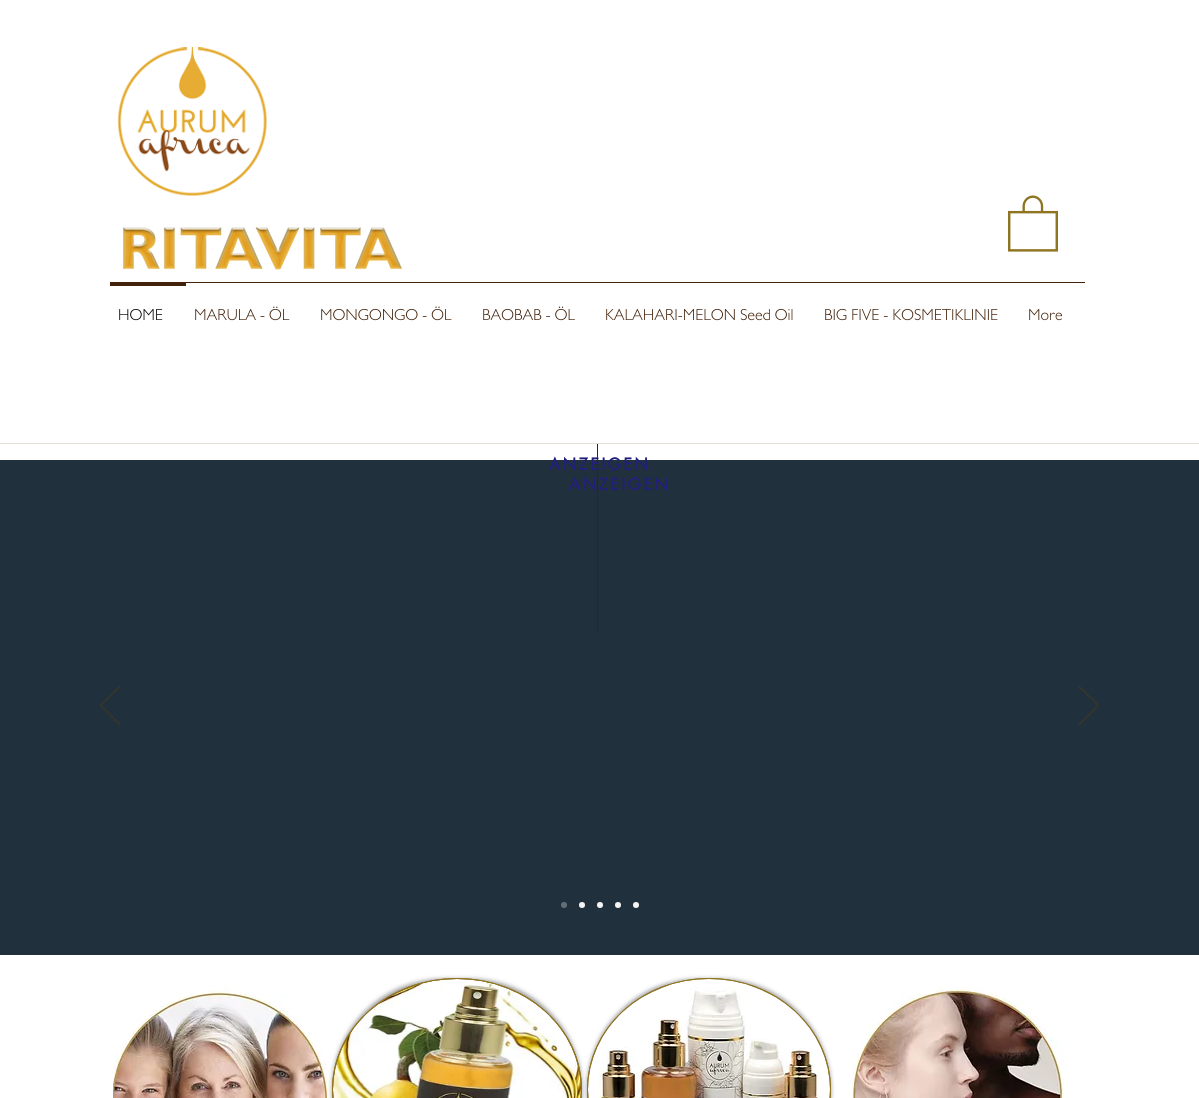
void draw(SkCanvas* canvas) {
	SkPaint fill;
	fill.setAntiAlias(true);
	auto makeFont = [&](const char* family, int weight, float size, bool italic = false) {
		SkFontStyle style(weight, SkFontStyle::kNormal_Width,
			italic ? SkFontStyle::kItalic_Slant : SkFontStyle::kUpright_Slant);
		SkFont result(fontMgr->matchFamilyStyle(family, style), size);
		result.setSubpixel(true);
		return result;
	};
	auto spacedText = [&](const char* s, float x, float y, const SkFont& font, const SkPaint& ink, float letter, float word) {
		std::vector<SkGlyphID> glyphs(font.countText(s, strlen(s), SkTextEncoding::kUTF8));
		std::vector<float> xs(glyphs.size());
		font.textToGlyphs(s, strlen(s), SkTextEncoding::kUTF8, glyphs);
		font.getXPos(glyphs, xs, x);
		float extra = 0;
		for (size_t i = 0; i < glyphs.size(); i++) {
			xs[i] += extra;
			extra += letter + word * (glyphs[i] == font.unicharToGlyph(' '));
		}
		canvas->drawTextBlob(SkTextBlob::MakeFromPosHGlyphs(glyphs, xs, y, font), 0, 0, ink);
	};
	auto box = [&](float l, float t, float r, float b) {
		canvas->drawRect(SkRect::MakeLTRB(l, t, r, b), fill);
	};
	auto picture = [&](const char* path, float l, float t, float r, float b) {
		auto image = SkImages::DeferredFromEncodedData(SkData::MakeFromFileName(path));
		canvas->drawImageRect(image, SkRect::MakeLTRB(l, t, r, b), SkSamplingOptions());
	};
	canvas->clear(0xFFFFFFFF);
	picture("image0.png", 117, 47, 267, 196);
	picture("image1.png", 123, 227, 402, 270);
	picture("image2.png", 1008, 195, 1058, 252);
	fill.setColor(0xFF42220B);
	box(110, 282, 186, 286);
	picture("image3.png", 119, 309, 163, 321);
	box(186, 282, 1085, 283);
	picture("image4.png", 195, 306, 290, 321);
	picture("image5.png", 321, 306, 452, 321);
	picture("image6.png", 483, 306, 575, 321);
	picture("image7.png", 606, 308, 793, 321);
	picture("image8.png", 825, 308, 998, 321);
	picture("image9.png", 1029, 309, 1062, 321);
	fill.setColor(0xFFE5E1D3);
	box(0, 443, 1199, 444);
	fill.setColor(0xFF20303C);
	box(0, 460, 1199, 955);
	fill.setColor(0xFF282626);
	box(597, 444, 598, 634);
	canvas->save();
	canvas->clipRect(SkRect::MakeLTRB(100, 686, 120, 726));
	fill.setStyle(SkPaint::kStroke_Style);
	fill.setStrokeWidth(1);
	fill.setColor(0xFF3B3626);
	canvas->drawPath(SkPathBuilder().moveTo(119.5f, 725).lineTo(100, 705.5f).lineTo(119.5f, 686).lineTo(120, 687).lineTo(101, 705.5f).lineTo(120, 724).close().detach(), fill);
	canvas->restore();
	canvas->save();
	canvas->clipRect(SkRect::MakeLTRB(1079, 686, 1099, 726));
	canvas->drawPath(SkPathBuilder().moveTo(1079.5f, 725).lineTo(1099, 705.5f).lineTo(1079.5f, 686).lineTo(1079, 687).lineTo(1098, 705.5f).lineTo(1079, 724).close().detach(), fill);
	canvas->restore();
	fill.setStyle(SkPaint::kFill_Style);
	fill.setColor(0xFF636E77);
	canvas->drawCircle(564, 905, 3, fill);
	fill.setColor(0xFFF6F5F5);
	canvas->drawCircle(582, 905, 3, fill);
	canvas->drawCircle(600, 905, 3, fill);
	canvas->drawCircle(618, 905, 3, fill);
	canvas->drawCircle(636, 905, 3, fill);
	picture("image10.png", 113, 986, 327, 1098);
	fill.setColor(0x66000000);
	fill.setMaskFilter(SkMaskFilter::MakeBlur(kNormal_SkBlurStyle, 2));
	canvas->drawRoundRect(SkRect::MakeLTRB(332, 979, 582, 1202), 111.5f, 111.5f, fill);
	fill.setMaskFilter(nullptr);
	fill.setColor(0xFF8F7421);
	canvas->drawOval(SkRect::MakeLTRB(332, 978, 582, 1201), fill);
	fill.setStyle(SkPaint::kStroke_Style);
	canvas->drawPath(SkPathBuilder().moveTo(457, 978.5f).cubicTo(526, 978.5f, 581.5f, 1028, 581.5f, 1089.5f).cubicTo(581.5f, 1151, 526, 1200.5f, 457, 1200.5f).cubicTo(388, 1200.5f, 332.5f, 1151, 332.5f, 1089.5f).cubicTo(332.5f, 1028, 388, 978.5f, 457, 978.5f).close().detach(), fill);
	picture("image11.png", 333, 979, 581, 1098);
	fill.setStyle(SkPaint::kFill_Style);
	fill.setColor(0x66000000);
	fill.setMaskFilter(SkMaskFilter::MakeBlur(kNormal_SkBlurStyle, 2));
	canvas->drawRoundRect(SkRect::MakeLTRB(587, 979, 831, 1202), 111.5f, 111.5f, fill);
	fill.setMaskFilter(nullptr);
	fill.setColor(0xFF8F7421);
	canvas->drawOval(SkRect::MakeLTRB(587, 978, 831, 1201), fill);
	fill.setStyle(SkPaint::kStroke_Style);
	canvas->drawPath(SkPathBuilder().moveTo(709, 978.5f).cubicTo(776, 978.5f, 830.5f, 1028, 830.5f, 1089.5f).cubicTo(830.5f, 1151, 776, 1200.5f, 709, 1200.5f).cubicTo(642, 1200.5f, 587.5f, 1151, 587.5f, 1089.5f).cubicTo(587.5f, 1028, 642, 978.5f, 709, 978.5f).close().detach(), fill);
	picture("image12.png", 588, 979, 830, 1098);
	picture("image13.png", 852, 987, 1065, 1098);
	auto font1 = makeFont("futura", 700, 16);
	fill.setStyle(SkPaint::kFill_Style);
	fill.setColor(0xFF221F7B);
	spacedText("ANZEIGEN", 549, 470, font1, fill, 2.5f, 0);
	spacedText("ANZEIGEN", 569, 490, font1, fill, 2.5f, 0);
}
